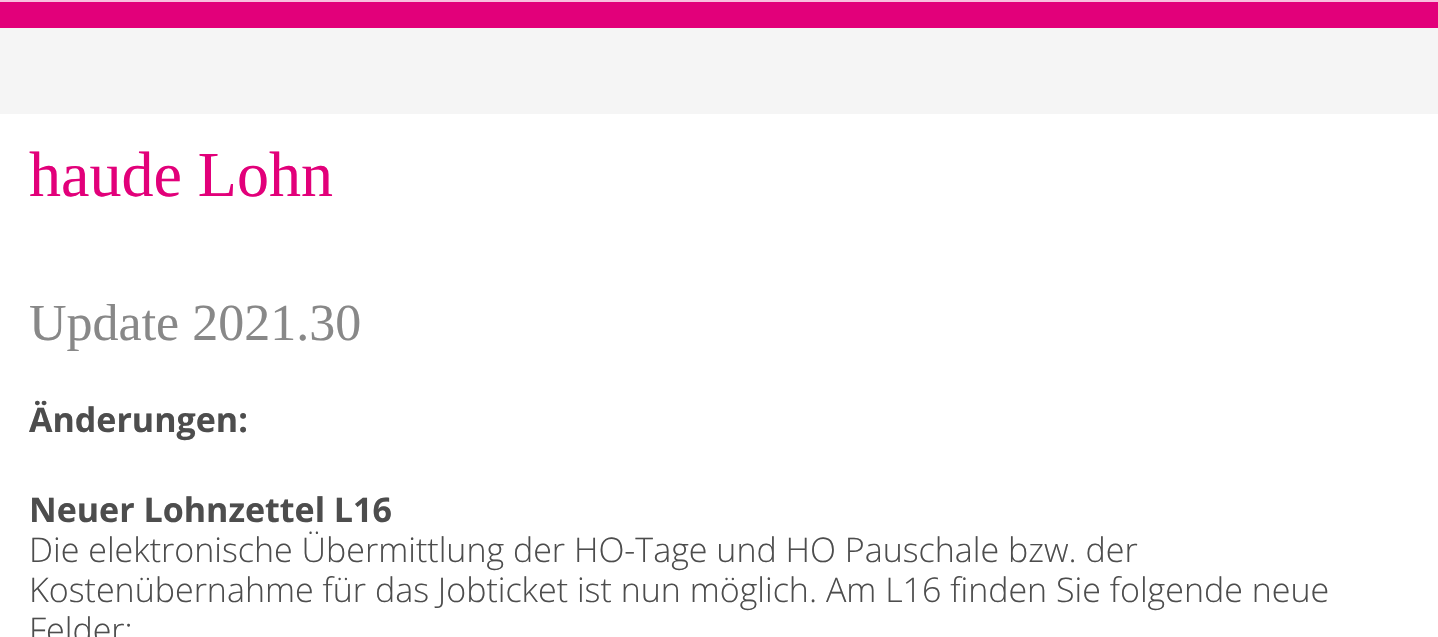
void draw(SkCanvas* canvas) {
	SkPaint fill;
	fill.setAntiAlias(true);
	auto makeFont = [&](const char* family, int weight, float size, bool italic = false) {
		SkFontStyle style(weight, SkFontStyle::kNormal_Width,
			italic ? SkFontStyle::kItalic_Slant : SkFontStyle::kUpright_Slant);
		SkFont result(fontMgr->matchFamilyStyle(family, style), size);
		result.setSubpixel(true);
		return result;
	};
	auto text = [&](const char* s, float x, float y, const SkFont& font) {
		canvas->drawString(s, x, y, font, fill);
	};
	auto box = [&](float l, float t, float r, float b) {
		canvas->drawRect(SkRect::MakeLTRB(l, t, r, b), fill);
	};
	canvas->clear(0xFFFFFFFF);
	fill.setColor(0xFFF5F5F5);
	box(0, 28, 1438, 114);
	fill.setColor(0xFFE2007A);
	box(0, 2, 1438, 28);
	fill.setColor(0xFFF8C0DE);
	box(0, 0, 1438, 2);
	auto font1 = makeFont("Liberation Serif", 400, 64);
	fill.setColor(0xFFE2007A);
	text("haude Lohn", 29, 196, font1);
	auto font2 = makeFont("Liberation Serif", 400, 52);
	fill.setColor(0xFF888888);
	text("Update 2021.30", 29, 340, font2);
	auto font3 = makeFont("Open Sans", 700, 34);
	fill.setColor(0xFF4D4D4D);
	text("Änderungen:", 29, 432, font3);
	text("Neuer Lohnzettel L16", 29, 522, font3);
	auto font4 = makeFont("Open Sans", 300, 34);
	text("Die elektronische Übermittlung der HO-Tage und HO Pauschale bzw. der", 29, 562, font4);
	text("Kostenübernahme für das Jobticket ist nun möglich. Am L16 finden Sie folgende neue", 29, 602, font4);
	text("Felder:", 29, 642, font4);
}
